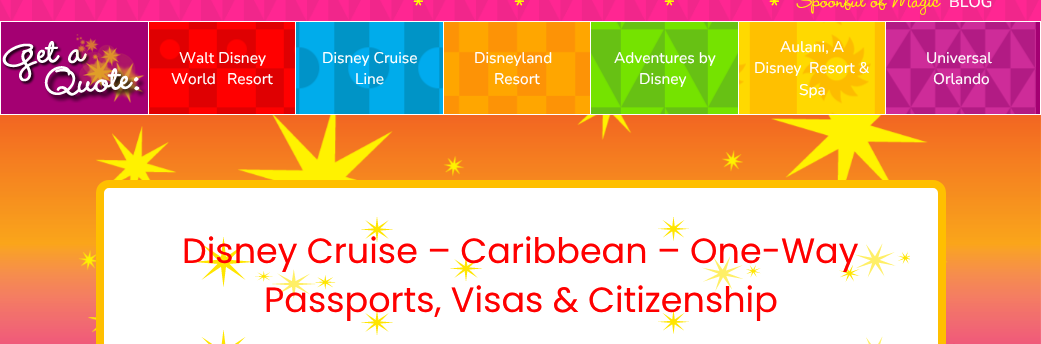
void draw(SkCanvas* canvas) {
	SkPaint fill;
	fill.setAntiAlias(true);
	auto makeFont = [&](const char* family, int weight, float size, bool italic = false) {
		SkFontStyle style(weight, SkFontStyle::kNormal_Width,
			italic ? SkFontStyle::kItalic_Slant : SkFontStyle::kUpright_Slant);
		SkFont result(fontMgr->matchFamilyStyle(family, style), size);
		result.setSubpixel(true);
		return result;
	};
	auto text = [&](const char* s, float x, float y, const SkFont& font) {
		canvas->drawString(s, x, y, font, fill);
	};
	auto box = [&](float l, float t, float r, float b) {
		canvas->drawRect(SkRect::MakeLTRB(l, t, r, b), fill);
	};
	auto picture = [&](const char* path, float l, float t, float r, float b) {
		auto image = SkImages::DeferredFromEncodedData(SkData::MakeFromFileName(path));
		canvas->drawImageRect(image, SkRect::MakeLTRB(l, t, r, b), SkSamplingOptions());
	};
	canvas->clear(0xFFFFFFFF);
	picture("image0.png", 0, 0, 1041, 21);
	fill.setColor(0xFFA40072);
	box(1, 22, 1040, 114);
	fill.setColor(0xFFFFFFFF);
	box(148, 22, 149, 114);
	picture("image1.png", 2, 34, 146, 103);
	box(295, 22, 296, 114);
	picture("image2.png", 149, 22, 295, 114);
	box(443, 22, 444, 114);
	picture("image3.png", 296, 22, 443, 114);
	box(590, 22, 591, 114);
	picture("image4.png", 444, 22, 590, 114);
	box(738, 22, 739, 114);
	picture("image5.png", 591, 22, 738, 114);
	box(885, 22, 886, 114);
	picture("image6.png", 739, 22, 885, 114);
	picture("image7.png", 886, 22, 1036, 114);
	picture("image9.png", 0, 115, 1041, 344);
	canvas->drawRoundRect(SkRect::MakeLTRB(100, 184, 942, 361), 9, 9, fill);
	fill.setStyle(SkPaint::kStroke_Style);
	fill.setStrokeWidth(8);
	fill.setColor(0xFFFFBF00);
	canvas->drawRoundRect(SkRect::MakeLTRB(100, 184, 942, 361), 9, 9, fill);
	picture("image8.png", 192, 217, 910, 344);
	auto font1 = makeFont("Nunito", 400, 24);
	fill.setStyle(SkPaint::kFill_Style);
	fill.setColor(0xFFFFFF00);
	text("*", 413, 14, font1);
	text("*", 514, 14, font1);
	text("*", 664, 14, font1);
	text("*", 769, 14, font1);
	auto font2 = makeFont("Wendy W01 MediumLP", 500, 24);
	text("Spoonful of Magic", 797, 7, font2);
	auto font3 = makeFont("Nunito", 400, 16);
	fill.setColor(0xFFFFFFFF);
	text("BLOG", 949, 7, font3);
	auto font4 = makeFont("Nunito", 400, 15.5f);
	text("Walt Disney", 179, 63, font4);
	text("World", 171, 84, font4);
	text("Resort", 227, 84, font4);
	text("Disney Cruise", 322, 63, font4);
	text("Line", 355, 84, font4);
	text("Disneyland", 474, 63, font4);
	text("Resort", 494, 84, font4);
	text("Adventures by", 614, 63, font4);
	text("Disney", 639, 84, font4);
	text("Aulani, A", 780, 52, font4);
	text("Disney", 754, 73, font4);
	text("Resort &", 809, 73, font4);
	text("Spa", 799, 95, font4);
	text("Universal", 926, 63, font4);
	text("Orlando", 933, 84, font4);
	auto font5 = makeFont("Poppins", 400, 35);
	fill.setColor(0xFFFF0000);
	text("Disney Cruise – Caribbean – One-Way", 182, 263, font5);
	text("Passports, Visas & Citizenship", 264, 312, font5);
}
